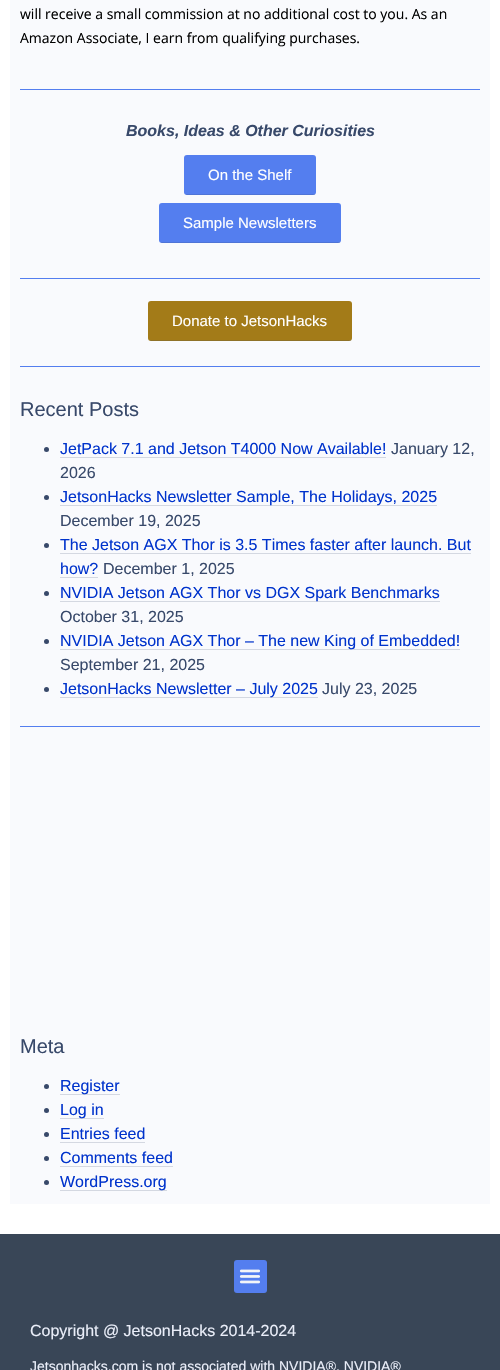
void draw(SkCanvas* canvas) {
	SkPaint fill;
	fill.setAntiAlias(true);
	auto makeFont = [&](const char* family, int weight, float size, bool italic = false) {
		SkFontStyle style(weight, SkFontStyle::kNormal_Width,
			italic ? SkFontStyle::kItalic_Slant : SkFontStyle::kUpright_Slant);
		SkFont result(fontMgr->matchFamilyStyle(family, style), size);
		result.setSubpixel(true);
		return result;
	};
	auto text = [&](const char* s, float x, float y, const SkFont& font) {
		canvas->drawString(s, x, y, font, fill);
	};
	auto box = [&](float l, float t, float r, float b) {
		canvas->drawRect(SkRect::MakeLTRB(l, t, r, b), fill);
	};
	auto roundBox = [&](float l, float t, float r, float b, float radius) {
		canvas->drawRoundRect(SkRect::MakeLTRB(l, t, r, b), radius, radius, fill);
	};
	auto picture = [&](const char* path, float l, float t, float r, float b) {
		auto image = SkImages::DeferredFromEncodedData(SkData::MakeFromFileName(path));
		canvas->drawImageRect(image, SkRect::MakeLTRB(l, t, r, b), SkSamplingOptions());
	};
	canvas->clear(0xFFFFFFFF);
	fill.setColor(0xFFF9FAFD);
	box(10, 0, 490, 1204);
	fill.setColor(0xFF547EEF);
	box(20, 89, 480, 90);
	roundBox(184, 155, 316, 195, 3);
	fill.setColor(0x3038496A);
	box(186, 194, 315, 195);
	fill.setColor(0xFF547EEF);
	roundBox(159, 203, 341, 243, 3);
	fill.setColor(0x3038496A);
	box(161, 242, 340, 243);
	fill.setColor(0xFF547EEF);
	box(20, 278, 480, 279);
	fill.setColor(0xFFA37B18);
	roundBox(148, 301, 352, 341, 3);
	fill.setColor(0x3038496A);
	box(150, 340, 351, 341);
	fill.setColor(0xFF547EEF);
	box(20, 366, 480, 367);
	fill.setColor(0xFF38496A);
	canvas->drawCircle(46.5f, 449.5f, 2.5f, fill);
	fill.setColor(0xFFD4D8E1);
	box(60, 457, 386, 458);
	fill.setColor(0xFF38496A);
	canvas->drawCircle(46.5f, 497.5f, 2.5f, fill);
	fill.setColor(0xFFD4D8E1);
	box(60, 505, 437, 506);
	fill.setColor(0xFF38496A);
	canvas->drawCircle(46.5f, 545.5f, 2.5f, fill);
	fill.setColor(0xFFD4D8E1);
	box(60, 553, 471, 554);
	box(60, 577, 98, 578);
	fill.setColor(0xFF38496A);
	canvas->drawCircle(46.5f, 593.5f, 2.5f, fill);
	fill.setColor(0xFFD4D8E1);
	box(60, 601, 440, 602);
	fill.setColor(0xFF38496A);
	canvas->drawCircle(46.5f, 641.5f, 2.5f, fill);
	fill.setColor(0xFFD4D8E1);
	box(60, 649, 460, 650);
	fill.setColor(0xFF38496A);
	canvas->drawCircle(46.5f, 689.5f, 2.5f, fill);
	fill.setColor(0xFFD4D8E1);
	box(60, 697, 318, 698);
	fill.setColor(0xFF547EEF);
	box(20, 726, 480, 727);
	fill.setColor(0xFF38496A);
	canvas->drawCircle(46.5f, 1086.5f, 2.5f, fill);
	fill.setColor(0xFFD4D8E1);
	box(60, 1094, 120, 1095);
	fill.setColor(0xFF38496A);
	canvas->drawCircle(46.5f, 1110.5f, 2.5f, fill);
	fill.setColor(0xFFD4D8E1);
	box(60, 1118, 104, 1119);
	fill.setColor(0xFF38496A);
	canvas->drawCircle(46.5f, 1134.5f, 2.5f, fill);
	fill.setColor(0xFFD4D8E1);
	box(60, 1142, 145, 1143);
	fill.setColor(0xFF38496A);
	canvas->drawCircle(46.5f, 1158.5f, 2.5f, fill);
	fill.setColor(0xFFD4D8E1);
	box(60, 1166, 173, 1167);
	fill.setColor(0xFF38496A);
	canvas->drawCircle(46.5f, 1182.5f, 2.5f, fill);
	fill.setColor(0xFFD4D8E1);
	box(60, 1190, 167, 1191);
	fill.setColor(0xFF394657);
	box(0, 1234, 500, 1370);
	fill.setColor(0xFF547EEF);
	roundBox(234, 1260, 267, 1293, 3);
	picture("image0.png", 239, 1269, 260, 1284);
	auto font1 = makeFont("Open Sans", 400, 14);
	fill.setColor(0xFF000000);
	text("will receive a small commission at no additional cost to you. As an", 20, 19, font1);
	text("Amazon Associate, I earn from qualifying purchases.", 20, 43, font1);
	auto font2 = makeFont("Liberation Sans", 700, 16, true);
	fill.setColor(0xFF38496A);
	text("Books, Ideas & Other Curiosities", 126, 136, font2);
	auto font3 = makeFont("Liberation Sans", 400, 15);
	fill.setColor(0xFFFFFFFF);
	text("On the Shelf", 208, 180, font3);
	text("Sample Newsletters", 183, 228, font3);
	text("Donate to JetsonHacks", 172, 326, font3);
	auto font4 = makeFont("Liberation Sans", 400, 20);
	fill.setColor(0xFF38496A);
	text("Recent Posts", 20, 416, font4);
	auto font5 = makeFont("Liberation Sans", 400, 16);
	fill.setColor(0xFF0033CC);
	text("JetPack 7.1 and Jetson T4000 Now Available!", 60, 454, font5);
	fill.setColor(0xFF38496A);
	text("January 12,", 391, 454, font5);
	text("2026", 60, 478, font5);
	fill.setColor(0xFF0033CC);
	text("JetsonHacks Newsletter Sample, The Holidays, 2025", 60, 502, font5);
	fill.setColor(0xFF38496A);
	text("December 19, 2025", 60, 526, font5);
	fill.setColor(0xFF0033CC);
	text("The Jetson AGX Thor is 3.5 Times faster after launch. But", 60, 550, font5);
	text("how?", 60, 574, font5);
	fill.setColor(0xFF38496A);
	text("December 1, 2025", 103, 574, font5);
	fill.setColor(0xFF0033CC);
	text("NVIDIA Jetson AGX Thor vs DGX Spark Benchmarks", 60, 598, font5);
	fill.setColor(0xFF38496A);
	text("October 31, 2025", 60, 622, font5);
	fill.setColor(0xFF0033CC);
	text("NVIDIA Jetson AGX Thor – The new King of Embedded!", 60, 646, font5);
	fill.setColor(0xFF38496A);
	text("September 21, 2025", 60, 670, font5);
	fill.setColor(0xFF0033CC);
	text("JetsonHacks Newsletter – July 2025", 60, 694, font5);
	fill.setColor(0xFF38496A);
	text("July 23, 2025", 322, 694, font5);
	text("Meta", 20, 1053, font4);
	fill.setColor(0xFF0033CC);
	text("Register", 60, 1091, font5);
	text("Log in", 60, 1115, font5);
	text("Entries feed", 60, 1139, font5);
	text("Comments feed", 60, 1163, font5);
	text("WordPress.org", 60, 1187, font5);
	fill.setColor(0xFFEAEEF9);
	text("Copyright @ JetsonHacks 2014-2024", 30, 1336, font5);
	auto font6 = makeFont("Liberation Sans", 400, 14);
	text("Jetsonhacks.com is not associated with NVIDIA®. NVIDIA®", 30, 1371, font6);
}
